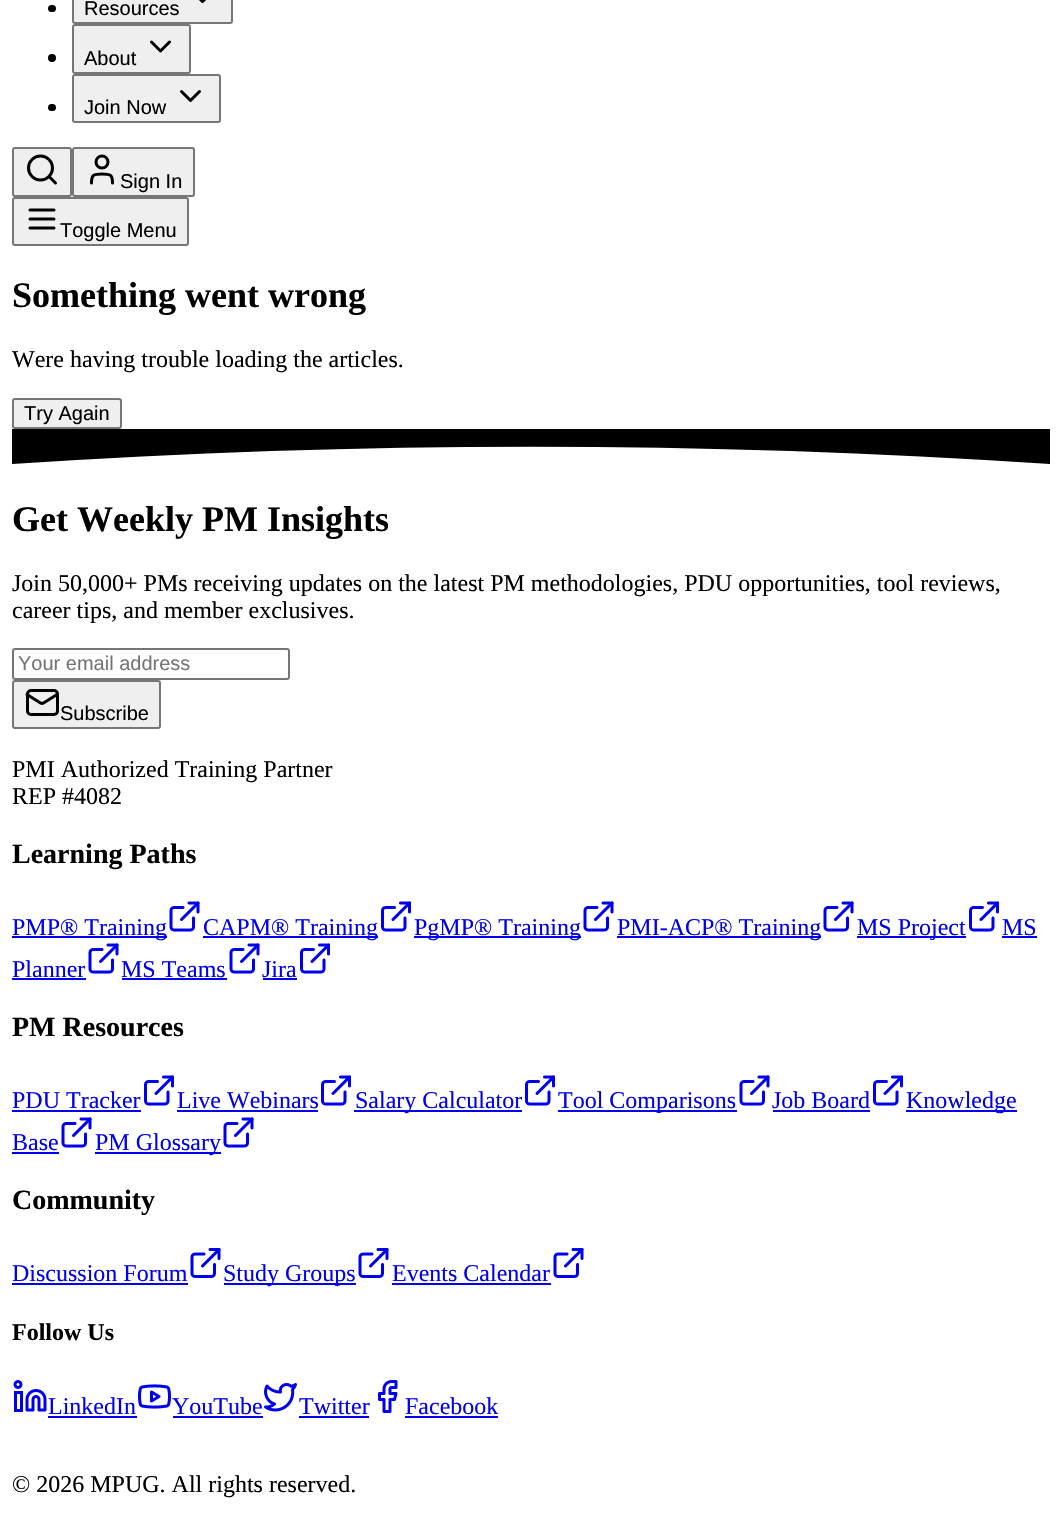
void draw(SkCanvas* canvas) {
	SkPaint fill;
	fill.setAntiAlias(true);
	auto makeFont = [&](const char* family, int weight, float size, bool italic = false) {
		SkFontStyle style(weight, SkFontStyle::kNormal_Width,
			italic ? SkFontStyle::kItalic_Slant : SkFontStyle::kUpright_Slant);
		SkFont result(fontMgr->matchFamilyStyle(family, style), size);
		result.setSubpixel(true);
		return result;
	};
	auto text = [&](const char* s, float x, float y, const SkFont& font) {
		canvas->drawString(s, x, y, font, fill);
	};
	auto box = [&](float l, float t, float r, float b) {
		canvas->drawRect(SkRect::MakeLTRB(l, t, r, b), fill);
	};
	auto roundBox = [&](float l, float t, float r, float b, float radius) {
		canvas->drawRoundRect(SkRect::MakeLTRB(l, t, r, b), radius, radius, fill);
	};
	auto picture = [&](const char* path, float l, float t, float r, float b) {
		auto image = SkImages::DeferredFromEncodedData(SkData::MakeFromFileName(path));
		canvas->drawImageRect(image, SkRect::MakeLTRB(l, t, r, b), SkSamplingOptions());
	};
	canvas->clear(0xFFFFFFFF);
	fill.setColor(0xFF000000);
	roundBox(48, 5, 56, 12, 3.5f);
	fill.setColor(0xFFEFEFEF);
	canvas->drawRoundRect(SkRect::MakeLTRB(73, -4, 232, 23), 2, 2, fill);
	fill.setStyle(SkPaint::kStroke_Style);
	fill.setStrokeWidth(2);
	fill.setColor(0xFF767676);
	canvas->drawRoundRect(SkRect::MakeLTRB(73, -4, 232, 23), 2, 2, fill);
	fill.setStyle(SkPaint::kFill_Style);
	fill.setColor(0xFFEFEFEF);
	canvas->drawRoundRect(SkRect::MakeLTRB(73, 25, 190, 73), 2, 2, fill);
	fill.setStyle(SkPaint::kStroke_Style);
	fill.setColor(0xFF767676);
	canvas->drawRoundRect(SkRect::MakeLTRB(73, 25, 190, 73), 2, 2, fill);
	fill.setStrokeWidth(3);
	fill.setStrokeCap(SkPaint::kRound_Cap);
	fill.setStrokeJoin(SkPaint::kRound_Join);
	fill.setColor(0xFF000000);
	canvas->drawPath(SkPathBuilder().moveTo(193.5f, -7.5f).lineTo(202.5f, 1.5f).lineTo(211.5f, -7.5f).moveTo(151.5f, 42).lineTo(160.5f, 51).lineTo(169.5f, 42).detach(), fill);
	fill.setStyle(SkPaint::kFill_Style);
	canvas->drawCircle(52, 58, 4, fill);
	roundBox(48, 104, 56, 111, 3.5f);
	fill.setColor(0xFFEFEFEF);
	canvas->drawRoundRect(SkRect::MakeLTRB(73, 75, 220, 122), 2, 2, fill);
	fill.setStyle(SkPaint::kStroke_Style);
	fill.setStrokeWidth(2);
	fill.setStrokeCap(SkPaint::kButt_Cap);
	fill.setStrokeJoin(SkPaint::kMiter_Join);
	fill.setColor(0xFF767676);
	canvas->drawRoundRect(SkRect::MakeLTRB(73, 75, 220, 122), 2, 2, fill);
	fill.setStrokeWidth(3);
	fill.setStrokeCap(SkPaint::kRound_Cap);
	fill.setStrokeJoin(SkPaint::kRound_Join);
	fill.setColor(0xFF000000);
	canvas->drawPath(SkPathBuilder().moveTo(181.5f, 91.5f).lineTo(190.5f, 100.5f).lineTo(199.5f, 91.5f).detach(), fill);
	fill.setStyle(SkPaint::kFill_Style);
	fill.setColor(0xFFEFEFEF);
	canvas->drawRoundRect(SkRect::MakeLTRB(13, 148, 71, 196), 2, 2, fill);
	fill.setStyle(SkPaint::kStroke_Style);
	fill.setStrokeWidth(2);
	fill.setStrokeCap(SkPaint::kButt_Cap);
	fill.setStrokeJoin(SkPaint::kMiter_Join);
	fill.setColor(0xFF767676);
	canvas->drawRoundRect(SkRect::MakeLTRB(13, 148, 71, 196), 2, 2, fill);
	fill.setStrokeWidth(3);
	fill.setColor(0xFF000000);
	canvas->drawCircle(40.5f, 168, 12, fill);
	fill.setStrokeCap(SkPaint::kRound_Cap);
	fill.setStrokeJoin(SkPaint::kRound_Join);
	canvas->drawPath(SkPathBuilder().moveTo(55.5f, 183).lineTo(49, 176.5f).detach(), fill);
	fill.setStyle(SkPaint::kFill_Style);
	fill.setColor(0xFFEFEFEF);
	canvas->drawRoundRect(SkRect::MakeLTRB(73, 148, 194, 196), 2, 2, fill);
	fill.setStyle(SkPaint::kStroke_Style);
	fill.setStrokeWidth(2);
	fill.setStrokeCap(SkPaint::kButt_Cap);
	fill.setStrokeJoin(SkPaint::kMiter_Join);
	fill.setColor(0xFF767676);
	canvas->drawRoundRect(SkRect::MakeLTRB(73, 148, 194, 196), 2, 2, fill);
	fill.setStrokeWidth(3);
	fill.setColor(0xFF000000);
	canvas->drawCircle(102, 162, 6, fill);
	fill.setStrokeCap(SkPaint::kRound_Cap);
	fill.setStrokeJoin(SkPaint::kRound_Join);
	canvas->drawPath(SkPathBuilder().moveTo(112.5f, 183).cubicTo(112.5f, 174.5f, 110, 174, 102, 174).cubicTo(94, 174, 91.5f, 174.5f, 91.5f, 183).detach(), fill);
	fill.setStyle(SkPaint::kFill_Style);
	fill.setColor(0xFFEFEFEF);
	canvas->drawRoundRect(SkRect::MakeLTRB(13, 198, 188, 245), 2, 2, fill);
	fill.setStyle(SkPaint::kStroke_Style);
	fill.setStrokeWidth(2);
	fill.setStrokeCap(SkPaint::kButt_Cap);
	fill.setStrokeJoin(SkPaint::kMiter_Join);
	fill.setColor(0xFF767676);
	canvas->drawRoundRect(SkRect::MakeLTRB(13, 198, 188, 245), 2, 2, fill);
	fill.setStrokeWidth(3);
	fill.setStrokeCap(SkPaint::kRound_Cap);
	fill.setStrokeJoin(SkPaint::kRound_Join);
	fill.setColor(0xFF000000);
	canvas->drawPath(SkPathBuilder().moveTo(30, 219).lineTo(54, 219).moveTo(30, 210).lineTo(54, 210).moveTo(30, 228).lineTo(54, 228).detach(), fill);
	fill.setStyle(SkPaint::kFill_Style);
	fill.setColor(0xFFEFEFEF);
	canvas->drawRoundRect(SkRect::MakeLTRB(13, 399, 121, 428), 2, 2, fill);
	fill.setStyle(SkPaint::kStroke_Style);
	fill.setStrokeWidth(2);
	fill.setStrokeCap(SkPaint::kButt_Cap);
	fill.setStrokeJoin(SkPaint::kMiter_Join);
	fill.setColor(0xFF767676);
	canvas->drawRoundRect(SkRect::MakeLTRB(13, 399, 121, 428), 2, 2, fill);
	fill.setStyle(SkPaint::kFill_Style);
	fill.setColor(0xFF000000);
	canvas->drawPath(SkPathBuilder().moveTo(12, 464).cubicTo(358, 441, 704, 441, 1050, 464).lineTo(1050, 429).lineTo(12, 429).close().detach(), fill);
	fill.setStyle(SkPaint::kStroke_Style);
	fill.setColor(0xFF767676);
	canvas->drawRoundRect(SkRect::MakeLTRB(13, 649, 289, 679), 2, 2, fill);
	fill.setStyle(SkPaint::kFill_Style);
	fill.setColor(0xFFEFEFEF);
	canvas->drawRoundRect(SkRect::MakeLTRB(13, 681, 160, 728), 2, 2, fill);
	fill.setStyle(SkPaint::kStroke_Style);
	fill.setColor(0xFF767676);
	canvas->drawRoundRect(SkRect::MakeLTRB(13, 681, 160, 728), 2, 2, fill);
	fill.setStrokeWidth(3);
	fill.setColor(0xFF000000);
	canvas->drawRoundRect(SkRect::MakeLTRB(27.5f, 690.5f, 57.5f, 714.5f), 3.5f, 3.5f, fill);
	fill.setStrokeCap(SkPaint::kRound_Cap);
	fill.setStrokeJoin(SkPaint::kRound_Join);
	canvas->drawPath(SkPathBuilder().moveTo(57, 694.5f).lineTo(43.5f, 703).cubicTo(42.5f, 703.5f, 41.5f, 703.5f, 40.5f, 703).lineTo(27, 694.5f).detach(), fill);
	fill.setStyle(SkPaint::kFill_Style);
	fill.setColor(0xFF0000EE);
	box(12, 936, 167, 938);
	picture("image0.png", 169, 901, 200, 932);
	box(203, 936, 378, 938);
	picture("image1.png", 381, 901, 411, 932);
	box(414, 936, 581, 938);
	picture("image0.png", 583, 901, 614, 932);
	box(617, 936, 821, 938);
	picture("image0.png", 823, 901, 854, 932);
	box(857, 936, 966, 938);
	picture("image1.png", 969, 901, 999, 932);
	box(1002, 936, 1037, 938);
	box(12, 978, 86, 980);
	picture("image0.png", 88, 943, 119, 974);
	box(122, 978, 227, 980);
	picture("image0.png", 229, 943, 260, 974);
	box(263, 978, 297, 980);
	picture("image1.png", 300, 943, 330, 974);
	box(12, 1110, 141, 1112);
	picture("image1.png", 144, 1075, 174, 1106);
	box(177, 1110, 318, 1112);
	picture("image1.png", 321, 1075, 351, 1106);
	box(354, 1110, 522, 1112);
	picture("image1.png", 525, 1075, 555, 1106);
	box(558, 1110, 737, 1112);
	picture("image0.png", 739, 1075, 770, 1106);
	box(773, 1110, 870, 1112);
	picture("image1.png", 873, 1075, 903, 1106);
	box(906, 1110, 1017, 1112);
	box(12, 1152, 59, 1154);
	picture("image0.png", 61, 1117, 92, 1148);
	box(95, 1152, 221, 1154);
	picture("image0.png", 223, 1117, 254, 1148);
	box(12, 1283, 188, 1285);
	picture("image2.png", 190, 1248, 221, 1278);
	box(224, 1283, 356, 1285);
	picture("image2.png", 358, 1248, 389, 1278);
	box(392, 1283, 551, 1285);
	picture("image2.png", 553, 1248, 584, 1278);
	picture("image3.png", 13, 1380, 47, 1412);
	box(48, 1416, 137, 1418);
	picture("image4.png", 137, 1384, 172, 1409);
	box(173, 1416, 263, 1418);
	picture("image5.png", 264, 1383, 297, 1412);
	box(299, 1416, 369, 1418);
	picture("image6.png", 378, 1380, 398, 1413);
	box(405, 1416, 498, 1418);
	auto font1 = makeFont("Liberation Sans", 400, 20);
	fill.setColor(0xFF000000);
	text("Resources", 84, 15, font1);
	text("About", 84, 65, font1);
	text("Join Now", 84, 114, font1);
	text("Sign In", 120, 188, font1);
	text("Toggle Menu", 60, 237, font1);
	auto font2 = makeFont("Liberation Serif", 700, 36);
	text("Something went wrong", 12, 307, font2);
	auto font3 = makeFont("Liberation Serif", 400, 24);
	text("Were having trouble loading the articles.", 12, 367, font3);
	text("Try Again", 24, 420, font1);
	text("Get Weekly PM Insights", 12, 531, font2);
	text("Join 50,000+ PMs receiving updates on the latest PM methodologies, PDU opportunities, tool reviews,", 12, 591, font3);
	text("career tips, and member exclusives.", 12, 618, font3);
	fill.setColor(0xFF757575);
	text("Your email address", 18, 670, font1);
	fill.setColor(0xFF000000);
	text("Subscribe", 60, 720, font1);
	text("PMI Authorized Training Partner", 12, 777, font3);
	text("REP #4082", 12, 804, font3);
	auto font4 = makeFont("Liberation Serif", 700, 28);
	text("Learning Paths", 12, 863, font4);
	fill.setColor(0xFF0000EE);
	text("PMP® Training", 12, 935, font3);
	text("CAPM® Training", 203, 935, font3);
	text("PgMP® Training", 414, 935, font3);
	text("PMI-ACP® Training", 617, 935, font3);
	text("MS Project", 857, 935, font3);
	text("MS", 1002, 935, font3);
	text("Planner", 12, 977, font3);
	text("MS Teams", 121, 977, font3);
	text("Jira", 262, 977, font3);
	fill.setColor(0xFF000000);
	text("PM Resources", 12, 1036, font4);
	fill.setColor(0xFF0000EE);
	text("PDU Tracker", 12, 1108, font3);
	text("Live Webinars", 177, 1108, font3);
	text("Salary Calculator", 355, 1108, font3);
	text("Tool Comparisons", 558, 1108, font3);
	text("Job Board", 772, 1108, font3);
	text("Knowledge", 906, 1108, font3);
	text("Base", 12, 1150, font3);
	text("PM Glossary", 95, 1150, font3);
	fill.setColor(0xFF000000);
	text("Community", 12, 1209, font4);
	fill.setColor(0xFF0000EE);
	text("Discussion Forum", 12, 1281, font3);
	text("Study Groups", 223, 1281, font3);
	text("Events Calendar", 392, 1281, font3);
	auto font5 = makeFont("Liberation Serif", 700, 24);
	fill.setColor(0xFF000000);
	text("Follow Us", 12, 1340, font5);
	fill.setColor(0xFF0000EE);
	text("LinkedIn", 48, 1414, font3);
	text("YouTube", 172, 1414, font3);
	text("Twitter", 299, 1414, font3);
	text("Facebook", 405, 1414, font3);
	fill.setColor(0xFF000000);
	text("© 2026 MPUG. All rights reserved.", 12, 1492, font3);
}
